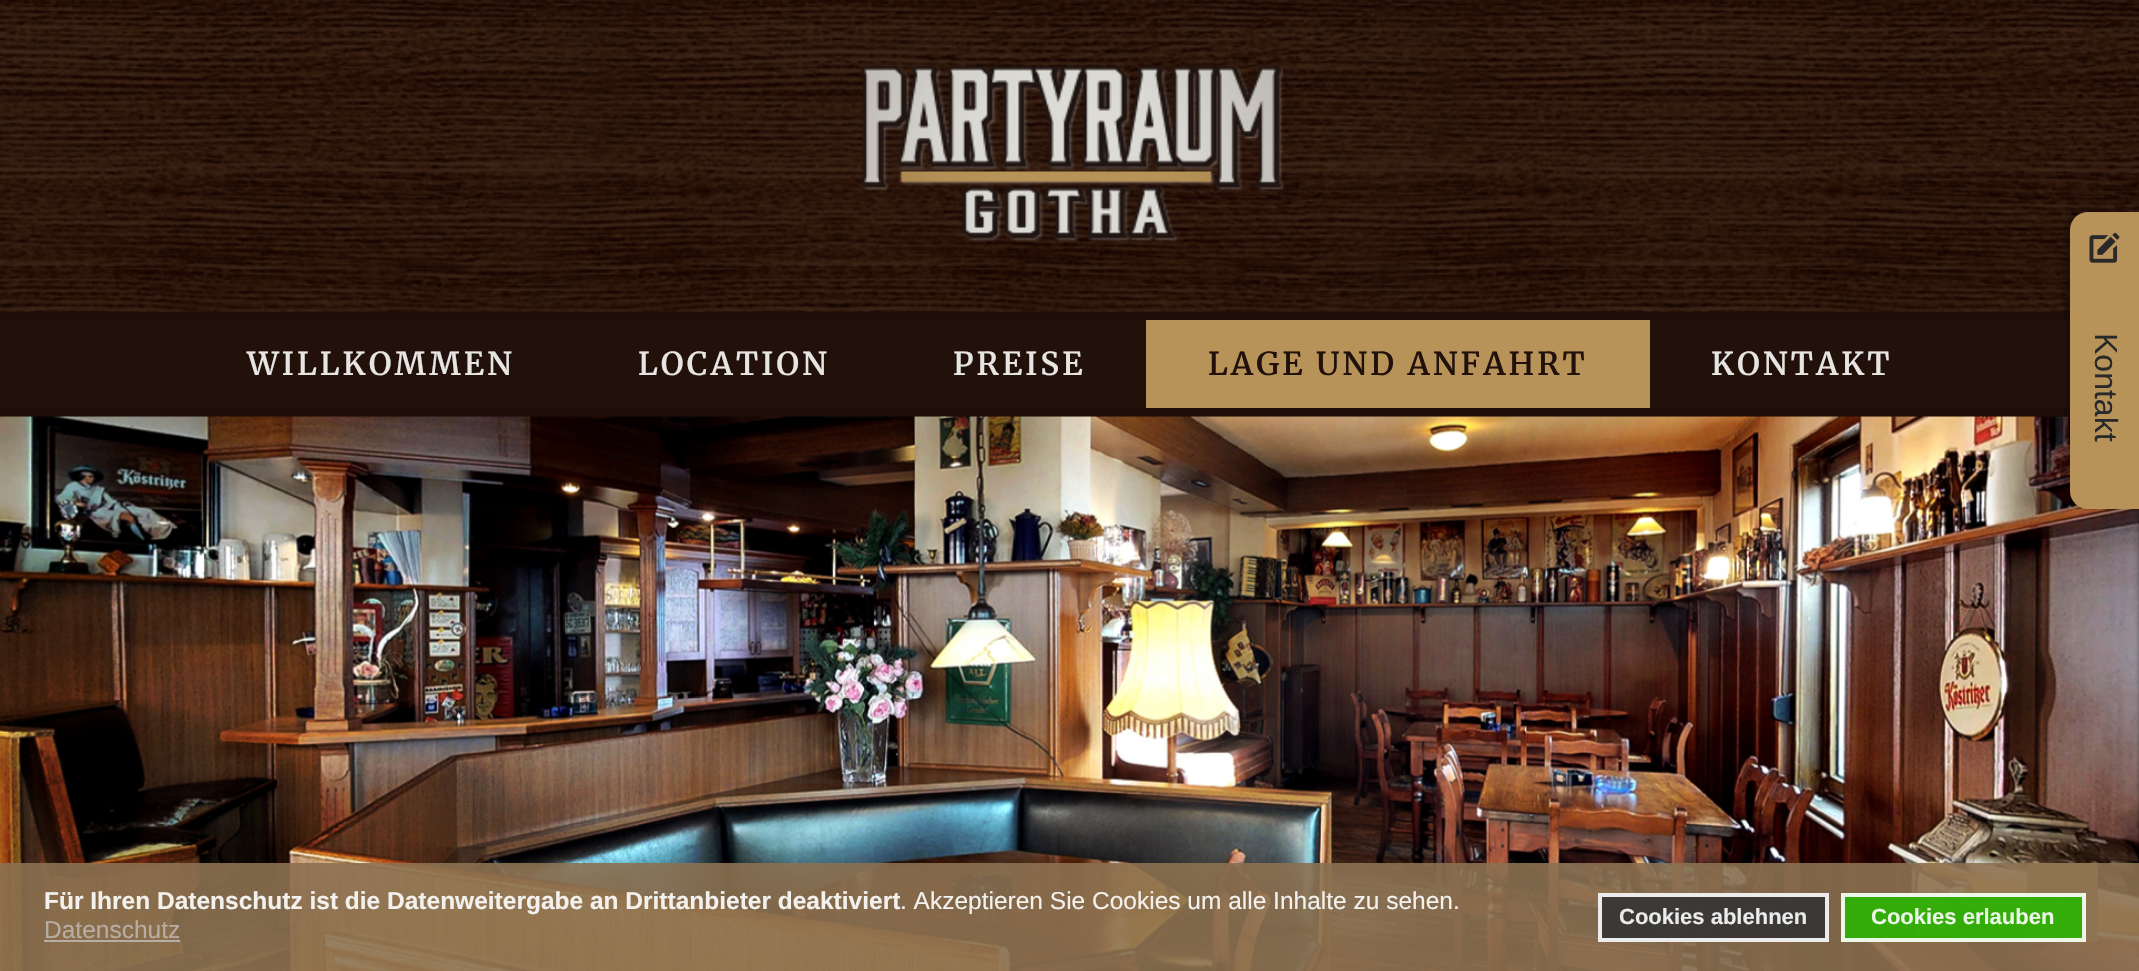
void draw(SkCanvas* canvas) {
	SkPaint fill;
	fill.setAntiAlias(true);
	auto makeFont = [&](const char* family, int weight, float size, bool italic = false) {
		SkFontStyle style(weight, SkFontStyle::kNormal_Width,
			italic ? SkFontStyle::kItalic_Slant : SkFontStyle::kUpright_Slant);
		SkFont result(fontMgr->matchFamilyStyle(family, style), size);
		result.setSubpixel(true);
		return result;
	};
	auto text = [&](const char* s, float x, float y, const SkFont& font) {
		canvas->drawString(s, x, y, font, fill);
	};
	auto spacedText = [&](const char* s, float x, float y, const SkFont& font, const SkPaint& ink, float letter, float word) {
		std::vector<SkGlyphID> glyphs(font.countText(s, strlen(s), SkTextEncoding::kUTF8));
		std::vector<float> xs(glyphs.size());
		font.textToGlyphs(s, strlen(s), SkTextEncoding::kUTF8, glyphs);
		font.getXPos(glyphs, xs, x);
		float extra = 0;
		for (size_t i = 0; i < glyphs.size(); i++) {
			xs[i] += extra;
			extra += letter + word * (glyphs[i] == font.unicharToGlyph(' '));
		}
		canvas->drawTextBlob(SkTextBlob::MakeFromPosHGlyphs(glyphs, xs, y, font), 0, 0, ink);
	};
	auto box = [&](float l, float t, float r, float b) {
		canvas->drawRect(SkRect::MakeLTRB(l, t, r, b), fill);
	};
	auto picture = [&](const char* path, float l, float t, float r, float b) {
		auto image = SkImages::DeferredFromEncodedData(SkData::MakeFromFileName(path));
		canvas->drawImageRect(image, SkRect::MakeLTRB(l, t, r, b), SkSamplingOptions());
	};
	canvas->clear(0xFFFFFFFF);
	picture("image0.png", 0, 0, 2139, 312);
	picture("image1.png", 861, 66, 1284, 242);
	fill.setColor(0xFF1C0D07);
	box(0, 312, 2070, 417);
	fill.setColor(0xFF22110A);
	box(0, 320, 2070, 408);
	fill.setColor(0xFFB79359);
	box(1146, 320, 1650, 408);
	picture("image3.png", 0, 417, 2070, 418);
	picture("image2.png", 0, 416, 2139, 971);
	fill.setColor(0x40000000);
	fill.setMaskFilter(SkMaskFilter::MakeBlur(kNormal_SkBlurStyle, 2.5f));
	canvas->drawRoundRect(SkRect::MakeLTRB(2065, 210, 2135, 508), 18, 18, fill);
	fill.setMaskFilter(nullptr);
	fill.setColor(0x80000000);
	fill.setMaskFilter(SkMaskFilter::MakeBlur(kNormal_SkBlurStyle, 3.5f));
	canvas->drawRoundRect(SkRect::MakeLTRB(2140, 194, 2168, 894), 18, 18, fill);
	fill.setMaskFilter(nullptr);
	fill.setColor(0xFFB79359);
	canvas->drawPath(SkPathBuilder().moveTo(2088, 212).lineTo(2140, 212).lineTo(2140, 509).lineTo(2088, 509).cubicTo(2078, 509, 2070, 501, 2070, 491).lineTo(2070, 230).cubicTo(2070, 220, 2078, 212, 2088, 212).close().detach(), fill);
	picture("image4.png", 2089, 232, 2120, 263);
	box(2027, 863, 2098, 942);
	picture("image5.png", 2054, 898, 2070, 908);
	fill.setColor(0xE68B7050);
	box(0, 863, 2139, 971);
	fill.setColor(0xB8C7C7C7);
	box(44, 940, 180, 942);
	fill.setColor(0xE6333333);
	box(1598, 893, 1829, 942);
	fill.setStyle(SkPaint::kStroke_Style);
	fill.setStrokeWidth(4);
	fill.setColor(0xE6FFFFFF);
	canvas->drawRect(SkRect::MakeLTRB(1600, 895, 1827, 940), fill);
	fill.setStyle(SkPaint::kFill_Style);
	fill.setColor(0xE62AB300);
	box(1841, 893, 2086, 942);
	fill.setStyle(SkPaint::kStroke_Style);
	fill.setColor(0xE6FFFFFF);
	canvas->drawRect(SkRect::MakeLTRB(1843, 895, 2084, 940), fill);
	auto font1 = makeFont("Merriweather", 600, 31.5f);
	fill.setStyle(SkPaint::kFill_Style);
	fill.setColor(0xFFE6E5E2);
	spacedText("WILLKOMMEN", 247, 375, font1, fill, 3.1f, 0);
	spacedText("LOCATION", 638, 375, font1, fill, 3.1f, 0);
	spacedText("PREISE", 953, 375, font1, fill, 3.1f, 0);
	fill.setColor(0xFF22110A);
	spacedText("LAGE UND ANFAHRT", 1208, 375, font1, fill, 3.1f, 0);
	fill.setColor(0xFFE6E5E2);
	spacedText("KONTAKT", 1711, 375, font1, fill, 3.1f, 0);
	auto font2 = makeFont("Liberation Sans", 400, 32);
	fill.setColor(0xFF292929);
	canvas->save();
	canvas->rotate(90, 2095, 333);
	text("Kontakt", 2095, 333, font2);
	canvas->restore();
	auto font3 = makeFont("Liberation Sans", 700, 24.5f);
	fill.setColor(0xFFF3F1ED);
	text("Für Ihren Datenschutz ist die Datenweitergabe an Drittanbieter deaktiviert", 44, 909, font3);
	auto font4 = makeFont("Liberation Sans", 400, 24.5f);
	text(". Akzeptieren Sie Cookies um alle Inhalte zu sehen.", 900, 909, font4);
	fill.setColor(0xFFB6AEA4);
	text("Datenschutz", 44, 938, font4);
	auto font5 = makeFont("Liberation Sans", 700, 22);
	fill.setColor(0xFFEBEBEB);
	text("Cookies ablehnen", 1619, 924, font5);
	fill.setColor(0xFFEBF7E6);
	text("Cookies erlauben", 1871, 924, font5);
}
